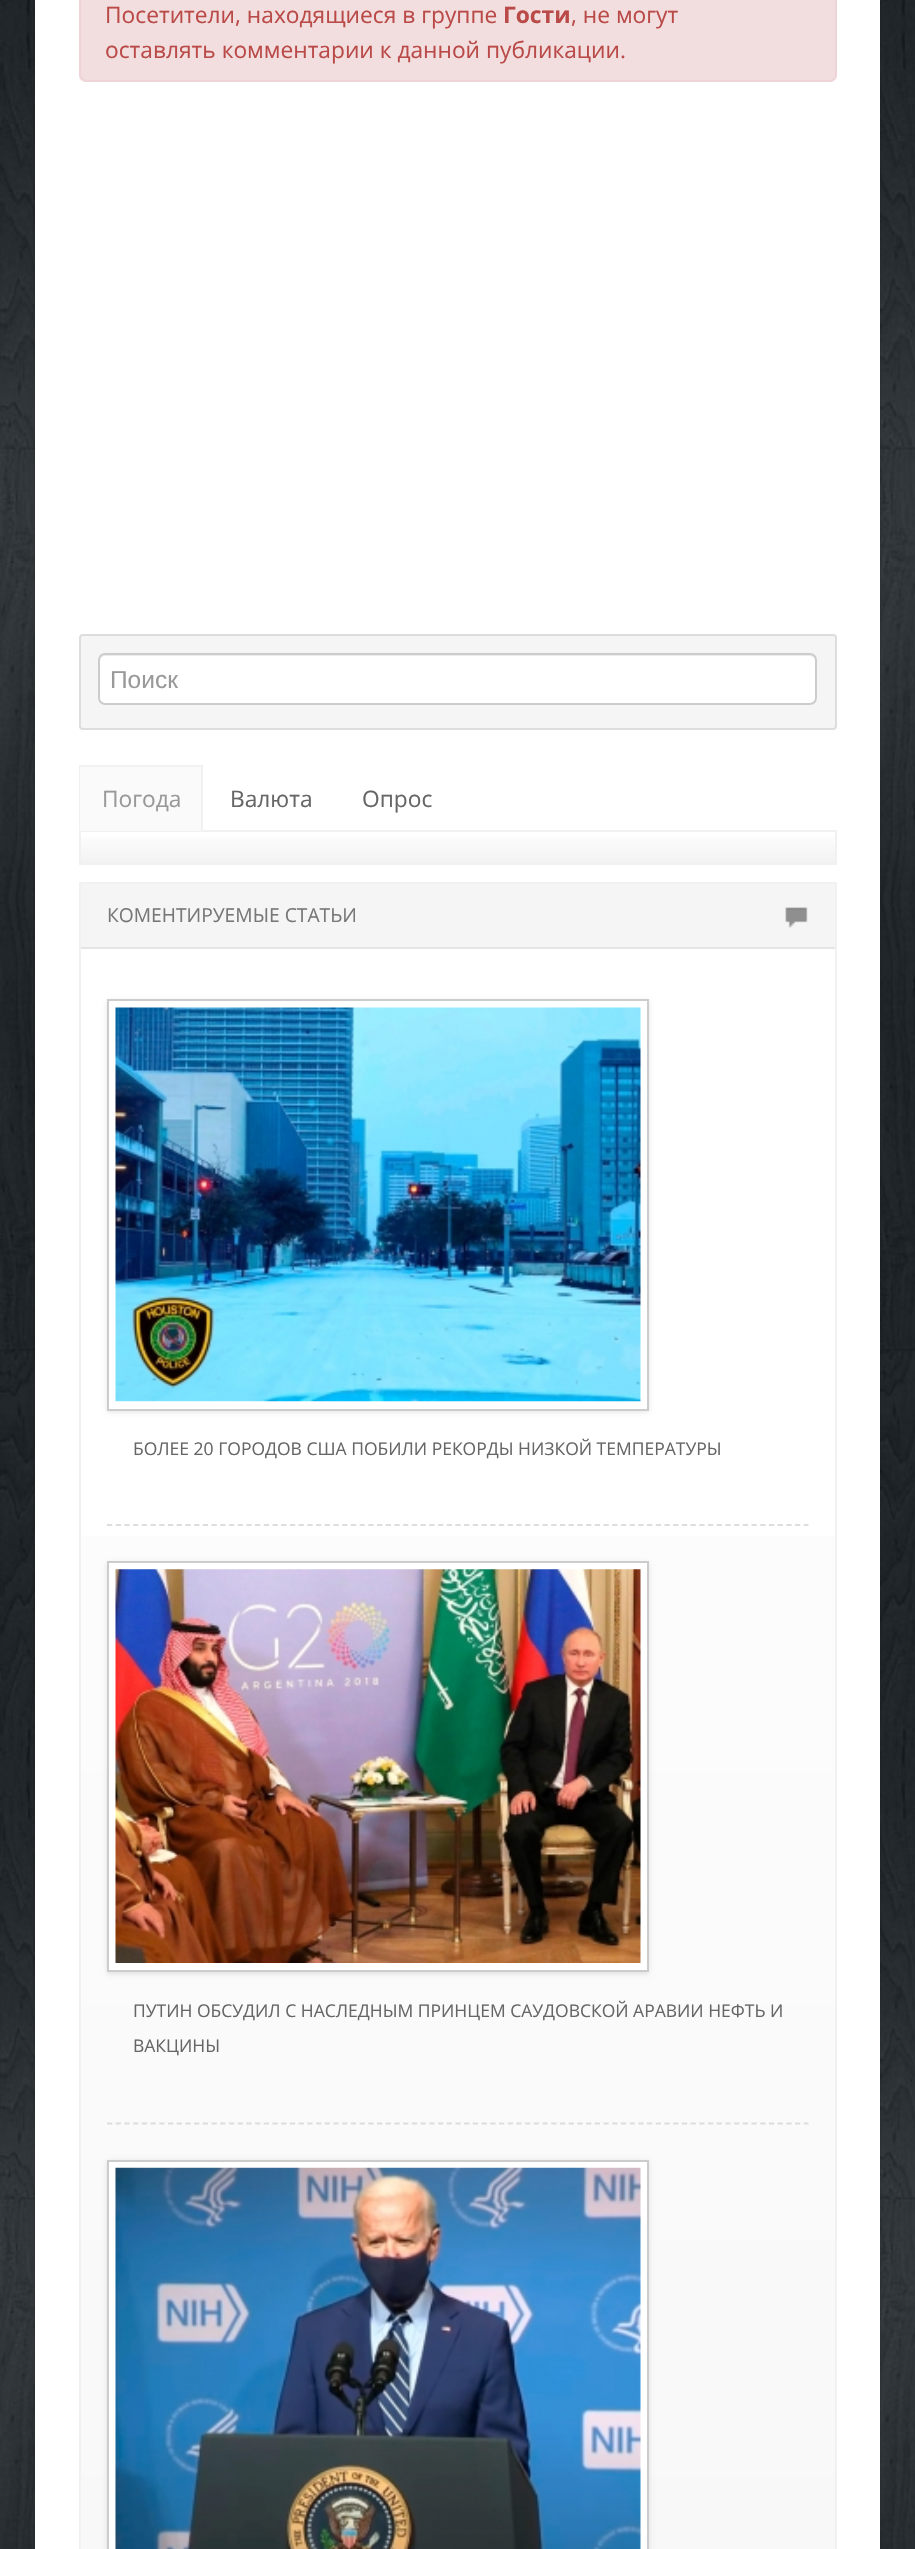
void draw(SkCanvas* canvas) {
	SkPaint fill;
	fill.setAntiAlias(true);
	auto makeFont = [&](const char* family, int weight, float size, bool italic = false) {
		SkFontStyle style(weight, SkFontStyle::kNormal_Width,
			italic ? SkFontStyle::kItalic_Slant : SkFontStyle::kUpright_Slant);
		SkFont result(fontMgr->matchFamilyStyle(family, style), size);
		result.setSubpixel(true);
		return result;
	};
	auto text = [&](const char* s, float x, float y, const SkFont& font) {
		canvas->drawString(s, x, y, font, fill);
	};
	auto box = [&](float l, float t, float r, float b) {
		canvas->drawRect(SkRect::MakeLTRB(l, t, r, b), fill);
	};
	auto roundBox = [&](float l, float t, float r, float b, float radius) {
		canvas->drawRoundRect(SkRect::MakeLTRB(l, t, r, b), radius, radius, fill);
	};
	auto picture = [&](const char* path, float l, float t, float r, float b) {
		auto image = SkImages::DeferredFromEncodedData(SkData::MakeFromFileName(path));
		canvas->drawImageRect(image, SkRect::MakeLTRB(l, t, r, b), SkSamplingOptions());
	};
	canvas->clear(0xFFFFFFFF);
	picture("image0.png", 0, 0, 915, 2549);
	fill.setColor(0x33000000);
	fill.setMaskFilter(SkMaskFilter::MakeBlur(kNormal_SkBlurStyle, 1));
	canvas->drawRect(SkRect::MakeLTRB(35, -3, 880, 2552), fill);
	fill.setMaskFilter(nullptr);
	fill.setColor(0xFFFFFFFF);
	box(35, 0, 880, 2549);
	fill.setColor(0xFFF2DEDE);
	canvas->drawRoundRect(SkRect::MakeLTRB(80, -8, 836, 81), 6, 6, fill);
	fill.setStyle(SkPaint::kStroke_Style);
	fill.setStrokeWidth(2);
	fill.setColor(0xFFEED3D7);
	canvas->drawRoundRect(SkRect::MakeLTRB(80, -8, 836, 81), 6, 6, fill);
	fill.setStyle(SkPaint::kFill_Style);
	fill.setColor(0xFFF5F5F5);
	canvas->drawRoundRect(SkRect::MakeLTRB(80, 635, 836, 729), 3, 3, fill);
	fill.setStyle(SkPaint::kStroke_Style);
	fill.setColor(0xFFDDDDDD);
	canvas->drawRoundRect(SkRect::MakeLTRB(80, 635, 836, 729), 3, 3, fill);
	fill.setStyle(SkPaint::kFill_Style);
	fill.setColor(0xFFFFFFFF);
	roundBox(98, 653, 817, 705, 7);
	fill.setColor(0xFFECECEC);
	canvas->drawPath(SkPathBuilder().moveTo(105, 656).lineTo(810, 656).cubicTo(813, 656, 816, 659, 816, 662).lineTo(816, 660).cubicTo(816, 657, 814, 655, 811, 655).lineTo(105, 655).cubicTo(102, 655, 100, 657, 100, 660).lineTo(100, 662).cubicTo(100, 659, 102, 656, 105, 656).close().detach(), fill);
	fill.setStyle(SkPaint::kStroke_Style);
	fill.setColor(0xFFCCCCCC);
	canvas->drawRoundRect(SkRect::MakeLTRB(99, 654, 816, 704), 6, 6, fill);
	fill.setStyle(SkPaint::kFill_Style);
	{
		const SkColor colors[] = {0xFFFFFFFF, 0xFFF2F2F2};
		const float stops[] = {0, 1};
		const SkPoint ends[] = {{458, 831}, {458, 863}};
		fill.setShader(SkGradientShader::MakeLinear(ends, colors, stops, 2, SkTileMode::kClamp));
		fill.setAlpha(255);
	}
	box(81, 837, 835, 863);
	fill.setStyle(SkPaint::kStroke_Style);
	fill.setShader(nullptr);
	fill.setColor(0xFFF1F1F1);
	canvas->drawRect(SkRect::MakeLTRB(80, 831, 836, 864), fill);
	fill.setStyle(SkPaint::kFill_Style);
	fill.setColor(0xFFFAFAFA);
	box(79, 767, 203, 831);
	fill.setColor(0xFFF1F1F1);
	box(79, 765, 203, 767);
	canvas->drawPath(SkPathBuilder().moveTo(203, 765).lineTo(203, 831).lineTo(201, 830).lineTo(201, 766).close().detach(), fill);
	canvas->drawPath(SkPathBuilder().moveTo(79, 831).lineTo(79, 765).lineTo(80, 766).lineTo(80, 830).close().detach(), fill);
	fill.setStyle(SkPaint::kStroke_Style);
	canvas->drawRect(SkRect::MakeLTRB(80, 883, 836, 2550), fill);
	fill.setStyle(SkPaint::kFill_Style);
	fill.setColor(0xFFF5F5F5);
	box(81, 884, 835, 947);
	picture("image1.png", 785, 907, 808, 928);
	{
		const SkColor colors[] = {0xFFFFFFFF, 0xFFF5F5F5};
		const float stops[] = {0, 1};
		const SkPoint ends[] = {{458, 949}, {458, 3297}};
		fill.setShader(SkGradientShader::MakeLinear(ends, colors, stops, 2, SkTileMode::kClamp));
		fill.setAlpha(255);
	}
	box(81, 1536, 835, 2549);
	fill.setShader(nullptr);
	fill.setColor(0xFFE5E5E5);
	box(81, 947, 835, 949);
	fill.setStyle(SkPaint::kStroke_Style);
	fill.setStrokeWidth(1.8f);
	fill.setColor(0xFFDDDDDD);
	fill.setPathEffect(SkDashPathEffect::Make({{5.25f, 3.46f}}, 0));
	canvas->drawPath(SkPathBuilder().moveTo(107, 1525).lineTo(808.5f, 1525).detach(), fill);
	fill.setPathEffect(nullptr);
	fill.setStyle(SkPaint::kFill_Style);
	fill.setColor(0x1A000000);
	fill.setMaskFilter(SkMaskFilter::MakeBlur(kNormal_SkBlurStyle, 2.5f));
	canvas->drawRect(SkRect::MakeLTRB(107, 1001, 649, 1412), fill);
	fill.setMaskFilter(nullptr);
	fill.setColor(0xFFFFFFFF);
	canvas->drawRect(SkRect::MakeLTRB(108, 1000, 648, 1410), fill);
	fill.setStyle(SkPaint::kStroke_Style);
	fill.setStrokeWidth(2);
	fill.setColor(0xFFCCCCCC);
	canvas->drawRect(SkRect::MakeLTRB(108, 1000, 648, 1410), fill);
	picture("image2.png", 115, 1007, 641, 1402);
	fill.setStrokeWidth(1.8f);
	fill.setColor(0xFFDDDDDD);
	fill.setPathEffect(SkDashPathEffect::Make({{5.25f, 3.46f}}, 0));
	canvas->drawPath(SkPathBuilder().moveTo(107, 2123.5f).lineTo(808.5f, 2123.5f).detach(), fill);
	fill.setPathEffect(nullptr);
	fill.setStyle(SkPaint::kFill_Style);
	fill.setColor(0x1A000000);
	fill.setMaskFilter(SkMaskFilter::MakeBlur(kNormal_SkBlurStyle, 2.5f));
	canvas->drawRect(SkRect::MakeLTRB(107, 1563, 649, 1974), fill);
	fill.setMaskFilter(nullptr);
	fill.setColor(0xFFFFFFFF);
	canvas->drawRect(SkRect::MakeLTRB(108, 1562, 648, 1971), fill);
	fill.setStyle(SkPaint::kStroke_Style);
	fill.setStrokeWidth(2);
	fill.setColor(0xFFCCCCCC);
	canvas->drawRect(SkRect::MakeLTRB(108, 1562, 648, 1971), fill);
	picture("image3.png", 115, 1569, 641, 1963);
	fill.setStyle(SkPaint::kFill_Style);
	fill.setColor(0x1A000000);
	fill.setMaskFilter(SkMaskFilter::MakeBlur(kNormal_SkBlurStyle, 2.5f));
	canvas->drawRect(SkRect::MakeLTRB(107, 2161, 649, 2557), fill);
	fill.setMaskFilter(nullptr);
	fill.setColor(0xFFFFFFFF);
	canvas->drawRect(SkRect::MakeLTRB(108, 2161, 648, 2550), fill);
	fill.setStyle(SkPaint::kStroke_Style);
	fill.setColor(0xFFCCCCCC);
	canvas->drawRect(SkRect::MakeLTRB(108, 2161, 648, 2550), fill);
	picture("image4.png", 115, 2167, 641, 2549);
	auto font1 = makeFont("Open Sans", 400, 22.75f);
	fill.setStyle(SkPaint::kFill_Style);
	fill.setColor(0xFFB94A48);
	text("Посетители, находящиеся в группе", 105, 23, font1);
	auto font2 = makeFont("Open Sans", 700, 22.75f);
	text("Гости", 503, 23, font2);
	text(", не могут", 571, 23, font1);
	text("оставлять комментарии к данной публикации.", 105, 58, font1);
	auto font3 = makeFont("Liberation Sans", 400, 24.5f);
	fill.setColor(0xFF999999);
	text("Поиск", 110, 688, font3);
	text("Погода", 102, 807, font1);
	fill.setColor(0xFF666666);
	text("Валюта", 230, 807, font1);
	text("Опрос", 362, 807, font1);
	auto font4 = makeFont("Open Sans", 400, 19.25f);
	fill.setColor(0xFF777777);
	text("КОМЕНТИРУЕМЫЕ СТАТЬИ", 107, 922, font4);
	auto font5 = makeFont("Open Sans", 400, 17.5f);
	fill.setColor(0xFF666666);
	text("БОЛЕЕ 20 ГОРОДОВ США ПОБИЛИ РЕКОРДЫ НИЗКОЙ ТЕМПЕРАТУРЫ", 133, 1455, font5);
	text("ПУТИН ОБСУДИЛ С НАСЛЕДНЫМ ПРИНЦЕМ САУДОВСКОЙ АРАВИИ НЕФТЬ И", 133, 2017, font5);
	text("ВАКЦИНЫ", 133, 2052, font5);
}
